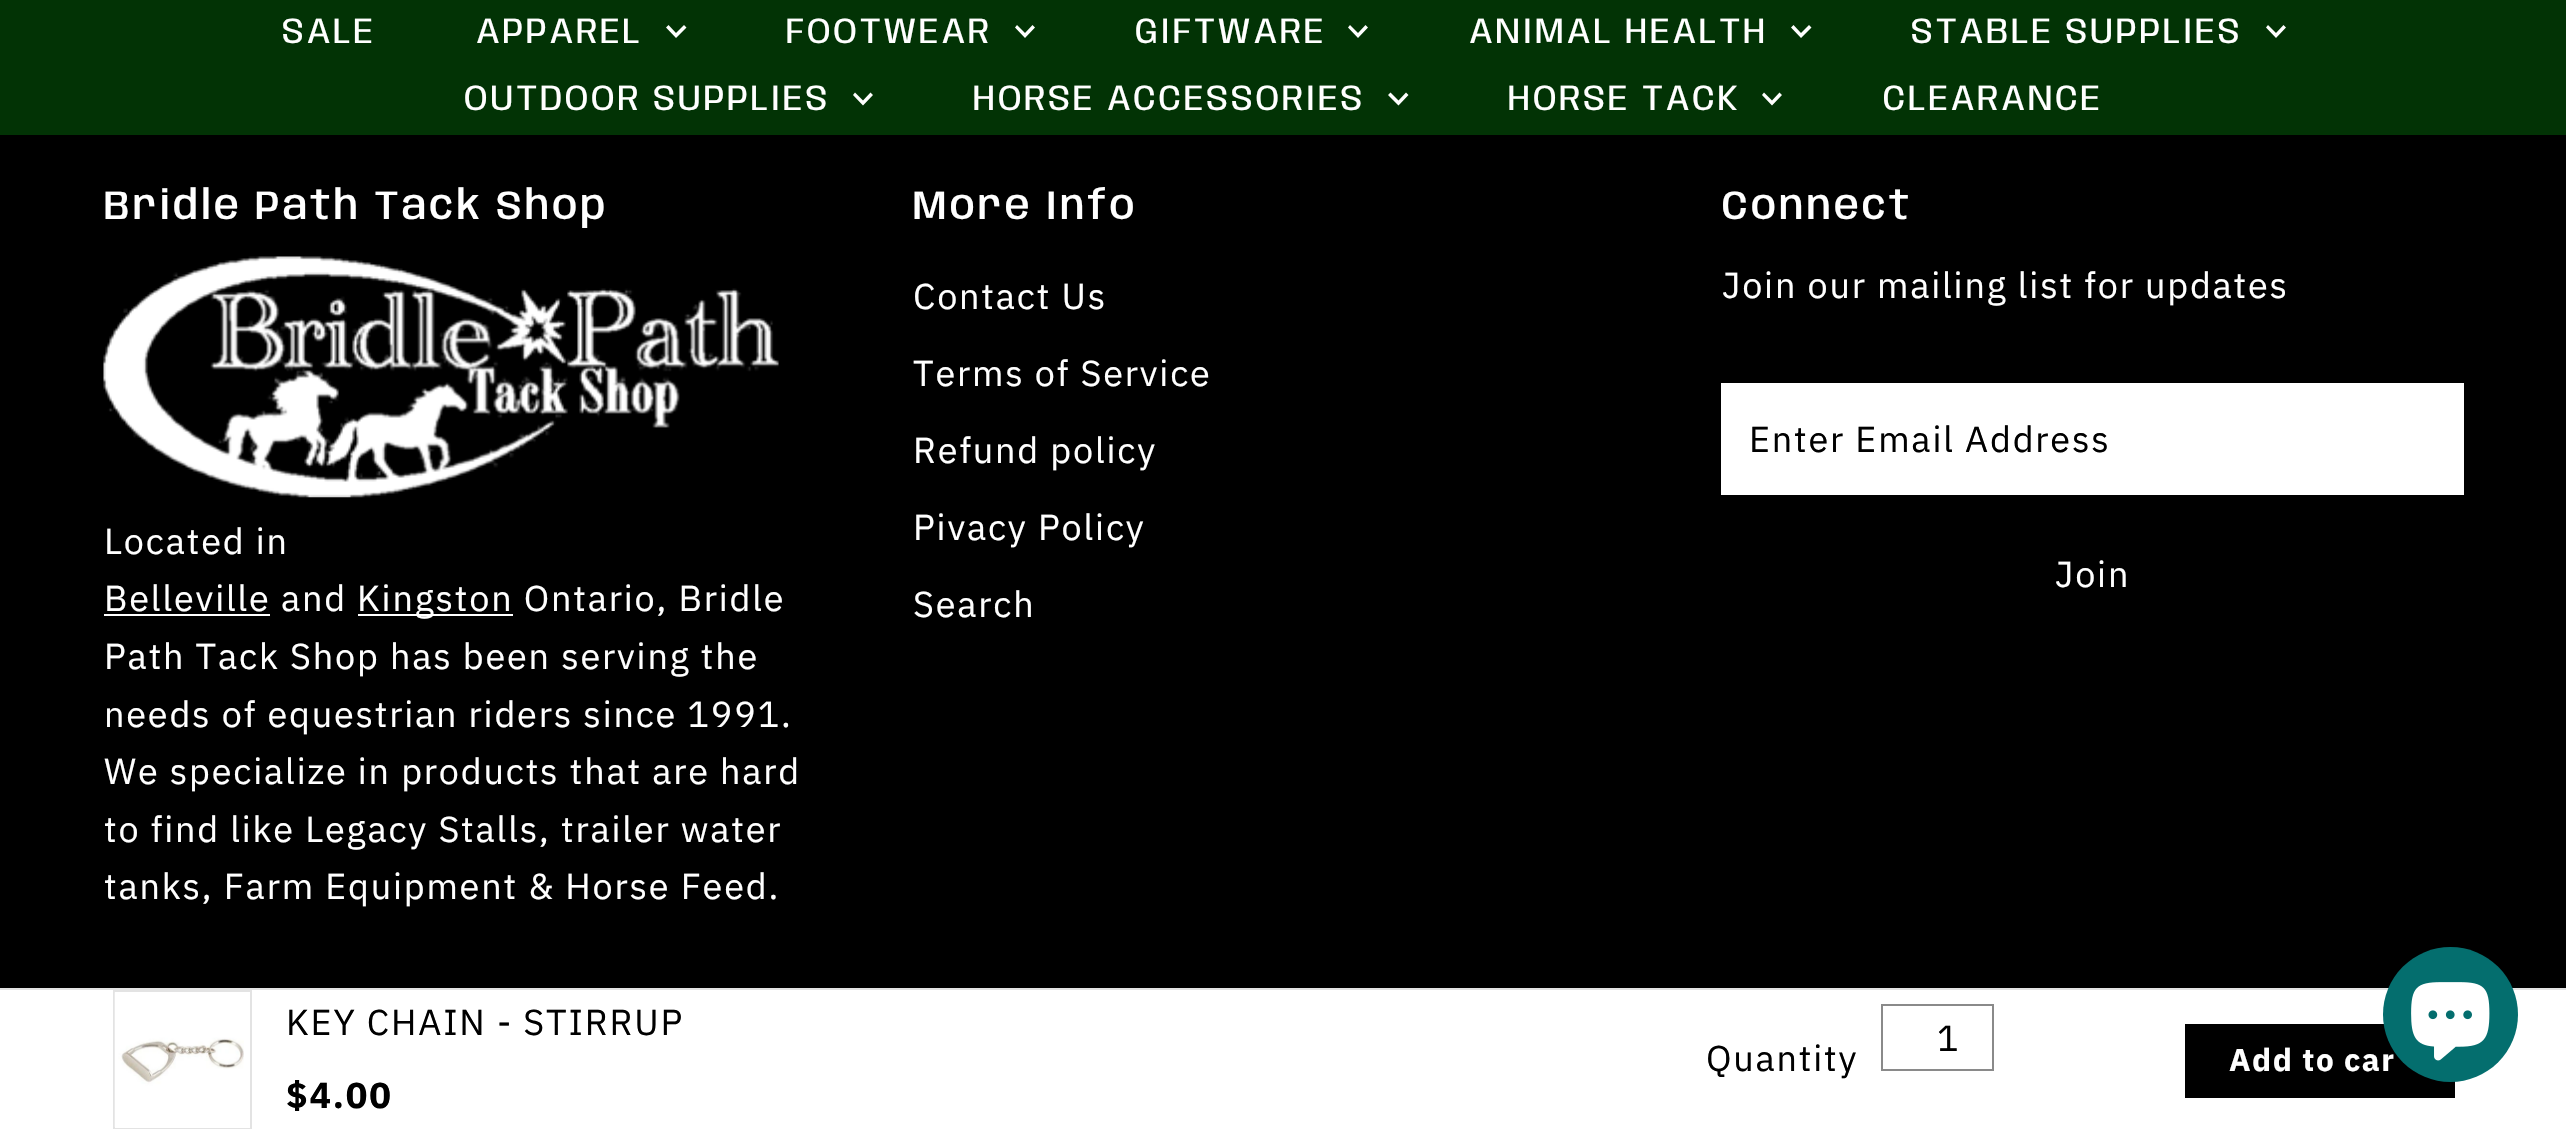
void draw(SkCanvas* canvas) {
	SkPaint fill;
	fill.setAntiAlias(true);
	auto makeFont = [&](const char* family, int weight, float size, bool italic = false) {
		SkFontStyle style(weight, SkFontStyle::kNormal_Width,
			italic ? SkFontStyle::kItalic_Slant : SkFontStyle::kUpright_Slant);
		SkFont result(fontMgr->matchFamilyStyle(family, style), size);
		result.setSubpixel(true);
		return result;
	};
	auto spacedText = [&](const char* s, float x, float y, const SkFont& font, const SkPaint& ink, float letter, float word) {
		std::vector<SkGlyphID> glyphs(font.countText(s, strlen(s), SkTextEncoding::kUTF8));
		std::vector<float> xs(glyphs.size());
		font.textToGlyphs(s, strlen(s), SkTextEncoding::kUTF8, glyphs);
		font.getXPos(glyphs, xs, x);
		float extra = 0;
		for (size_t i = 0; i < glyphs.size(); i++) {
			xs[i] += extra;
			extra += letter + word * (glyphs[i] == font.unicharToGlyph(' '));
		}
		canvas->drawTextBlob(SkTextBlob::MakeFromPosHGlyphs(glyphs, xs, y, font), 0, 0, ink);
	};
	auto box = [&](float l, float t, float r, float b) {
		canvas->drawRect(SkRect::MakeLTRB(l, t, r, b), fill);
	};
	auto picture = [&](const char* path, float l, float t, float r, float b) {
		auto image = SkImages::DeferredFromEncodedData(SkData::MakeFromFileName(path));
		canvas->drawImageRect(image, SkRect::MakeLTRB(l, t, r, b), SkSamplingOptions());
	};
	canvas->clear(0xFF000000);
	fill.setColor(0xFF023305);
	box(0, 0, 2566, 135);
	fill.setColor(0xFFFFFFFF);
	canvas->drawPath(SkPathBuilder().moveTo(684, 25).lineTo(676, 33).lineTo(668.5f, 25).lineTo(666, 27.5f).lineTo(676, 38).lineTo(686.5f, 27.5f).close().detach(), fill);
	canvas->drawPath(SkPathBuilder().moveTo(1032.5f, 25).lineTo(1025, 33).lineTo(1017, 25).lineTo(1015, 27.5f).lineTo(1025, 38).lineTo(1035, 27.5f).close().detach(), fill);
	canvas->drawPath(SkPathBuilder().moveTo(1365.5f, 25).lineTo(1358, 33).lineTo(1350, 25).lineTo(1348, 27.5f).lineTo(1358, 38).lineTo(1368, 27.5f).close().detach(), fill);
	canvas->drawPath(SkPathBuilder().moveTo(1809, 25).lineTo(1801, 33).lineTo(1793.5f, 25).lineTo(1791, 27.5f).lineTo(1801, 38).lineTo(1811.5f, 27.5f).close().detach(), fill);
	canvas->drawPath(SkPathBuilder().moveTo(2283.5f, 25).lineTo(2276, 33).lineTo(2268, 25).lineTo(2266, 27.5f).lineTo(2276, 38).lineTo(2286, 27.5f).close().detach(), fill);
	canvas->drawPath(SkPathBuilder().moveTo(870.5f, 92.5f).lineTo(863, 100.5f).lineTo(855, 92.5f).lineTo(853, 95).lineTo(863, 105.5f).lineTo(873, 95).close().detach(), fill);
	canvas->drawPath(SkPathBuilder().moveTo(1406, 92.5f).lineTo(1398.5f, 100.5f).lineTo(1390.5f, 92.5f).lineTo(1388, 95).lineTo(1398.5f, 105.5f).lineTo(1408.5f, 95).close().detach(), fill);
	canvas->drawPath(SkPathBuilder().moveTo(1779.5f, 92.5f).lineTo(1772, 100.5f).lineTo(1764, 92.5f).lineTo(1762, 95).lineTo(1772, 105.5f).lineTo(1782, 95).close().detach(), fill);
	picture("image0.png", 103, 256, 779, 498);
	box(104, 614, 270, 616);
	box(358, 614, 513, 616);
	box(1721, 383, 2464, 495);
	box(0, 990, 2566, 1129);
	fill.setColor(0xFFE3E3E3);
	box(0, 988, 2566, 990);
	fill.setStyle(SkPaint::kStroke_Style);
	fill.setStrokeWidth(2);
	canvas->drawRect(SkRect::MakeLTRB(114, 991, 251, 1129), fill);
	picture("image1.png", 114, 992, 244, 1127);
	fill.setColor(0xFF8A8A8A);
	canvas->drawRect(SkRect::MakeLTRB(1882, 1005, 1993, 1070), fill);
	fill.setStyle(SkPaint::kFill_Style);
	fill.setColor(0xFF000000);
	box(2185, 1024, 2455, 1098);
	auto font1 = makeFont("Anybody", 400, 36);
	fill.setColor(0xFFFFFFFF);
	spacedText("SALE", 282, 43, font1, fill, 2.75f, 0);
	spacedText("APPAREL", 476, 43, font1, fill, 2.75f, 0);
	spacedText("FOOTWEAR", 786, 43, font1, fill, 2.75f, 0);
	spacedText("GIFTWARE", 1135, 43, font1, fill, 2.75f, 0);
	spacedText("ANIMAL HEALTH", 1469, 43, font1, fill, 2.75f, 0);
	spacedText("STABLE SUPPLIES", 1911, 43, font1, fill, 2.75f, 0);
	spacedText("OUTDOOR SUPPLIES", 464, 110, font1, fill, 2.75f, 0);
	spacedText("HORSE ACCESSORIES", 973, 110, font1, fill, 2.75f, 0);
	spacedText("HORSE TACK", 1508, 110, font1, fill, 2.75f, 0);
	spacedText("CLEARANCE", 1883, 110, font1, fill, 2.75f, 0);
	auto font2 = makeFont("Anybody", 500, 40.5f);
	spacedText("Bridle Path Tack Shop", 104, 219, font2, fill, 3, 0);
	auto font3 = makeFont("IBM Plex Sans", 400, 36);
	spacedText("Located in", 104, 554, font3, fill, 1.8f, 0);
	spacedText("Belleville and", 104, 611, font3, fill, 1.8f, 0);
	spacedText("Kingston Ontario, Bridle", 357, 611, font3, fill, 1.8f, 0);
	spacedText("Path Tack Shop has been serving the", 104, 669, font3, fill, 1.8f, 0);
	spacedText("needs of equestrian riders since 1991.", 104, 727, font3, fill, 1.8f, 0);
	spacedText("We specialize in products that are hard", 104, 784, font3, fill, 1.8f, 0);
	spacedText("to find like Legacy Stalls, trailer water", 104, 842, font3, fill, 1.8f, 0);
	spacedText("tanks, Farm Equipment & Horse Feed.", 104, 899, font3, fill, 1.8f, 0);
	spacedText("More Info", 913, 219, font2, fill, 3, 0);
	spacedText("Contact Us", 913, 309, font3, fill, 1.8f, 0);
	spacedText("Terms of Service", 913, 386, font3, fill, 1.8f, 0);
	spacedText("Refund policy", 913, 463, font3, fill, 1.8f, 0);
	spacedText("Pivacy Policy", 913, 540, font3, fill, 1.8f, 0);
	spacedText("Search", 913, 617, font3, fill, 1.8f, 0);
	spacedText("Connect", 1722, 219, font2, fill, 3, 0);
	spacedText("Join our mailing list for updates", 1722, 298, font3, fill, 1.8f, 0);
	fill.setColor(0xFF000000);
	spacedText("Enter Email Address", 1749, 452, font3, fill, 1.8f, 0);
	fill.setColor(0xFFFFFFFF);
	spacedText("Join", 2055, 587, font3, fill, 1.8f, 0);
	fill.setColor(0xFF000000);
	spacedText("KEY CHAIN - STIRRUP", 286, 1035, font3, fill, 1.8f, 0);
	auto font4 = makeFont("IBM Plex Sans", 700, 36);
	spacedText("$4.00", 286, 1108, font4, fill, 1.8f, 0);
	spacedText("1", 1937, 1051, font3, fill, 1.8f, 0);
	spacedText("Quantity", 1706, 1071, font3, fill, 1.8f, 0);
	auto font5 = makeFont("IBM Plex Sans", 700, 31.5f);
	fill.setColor(0xFFFFFFFF);
	spacedText("Add to car", 2229, 1071, font5, fill, 1.5f, 0);
	fill.setColor(0xFF046E6E);
	canvas->drawCircle(2450.5f, 1014.5f, 67.5f, fill);
	picture("image2.png", 2411, 982, 2490, 1061);
}
